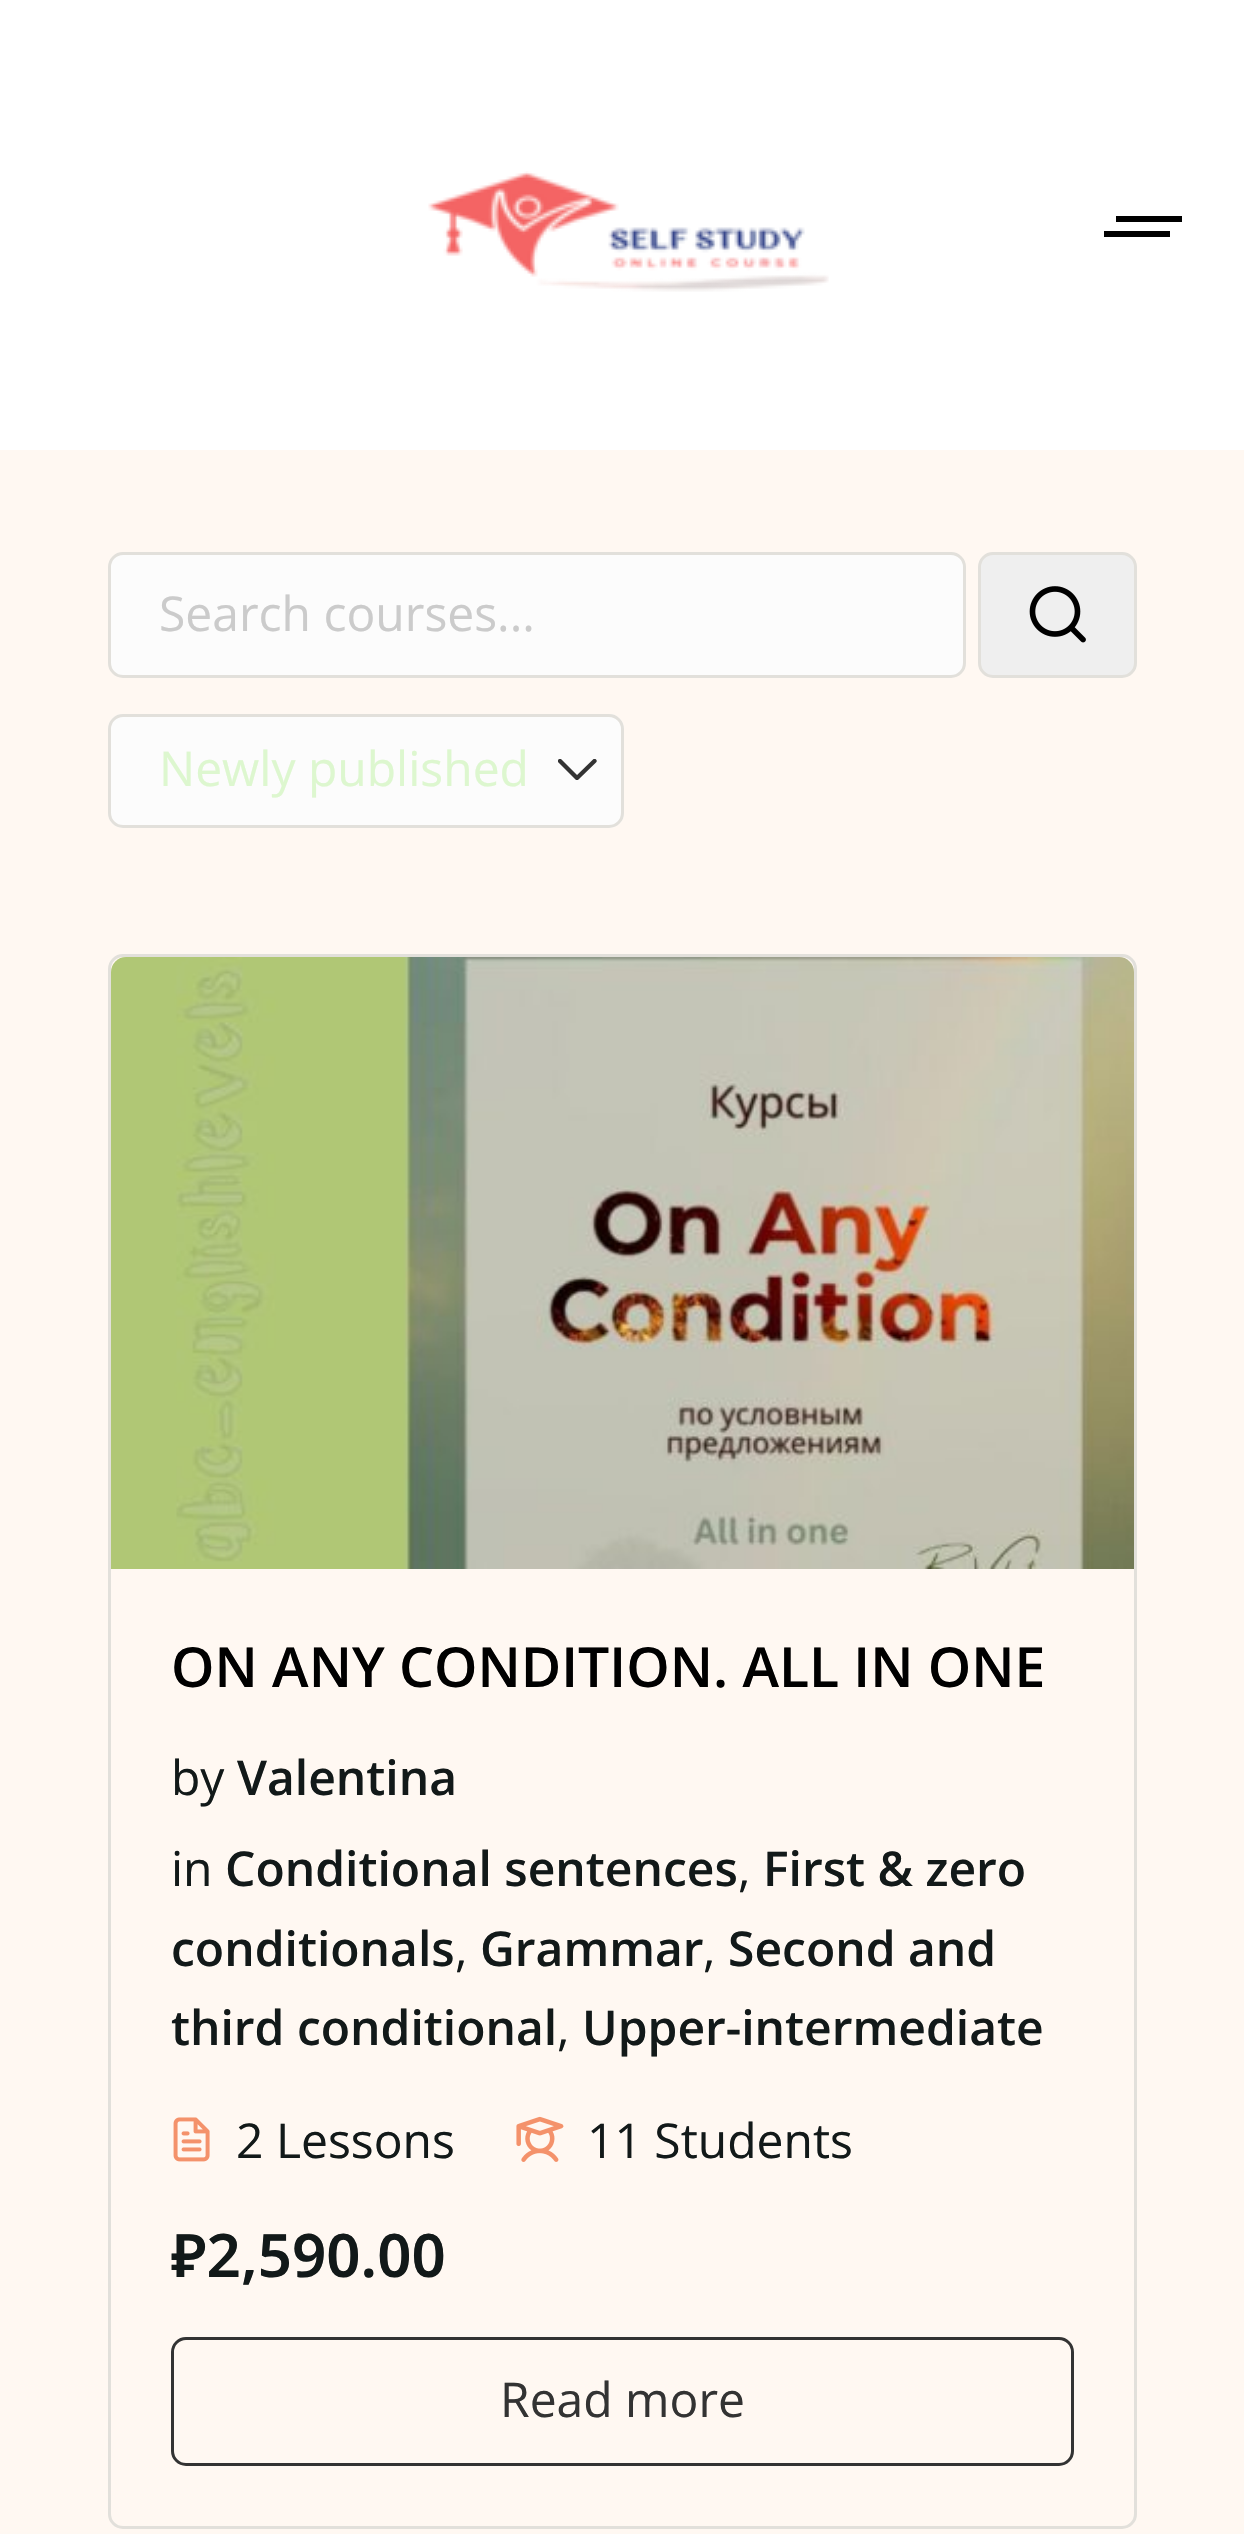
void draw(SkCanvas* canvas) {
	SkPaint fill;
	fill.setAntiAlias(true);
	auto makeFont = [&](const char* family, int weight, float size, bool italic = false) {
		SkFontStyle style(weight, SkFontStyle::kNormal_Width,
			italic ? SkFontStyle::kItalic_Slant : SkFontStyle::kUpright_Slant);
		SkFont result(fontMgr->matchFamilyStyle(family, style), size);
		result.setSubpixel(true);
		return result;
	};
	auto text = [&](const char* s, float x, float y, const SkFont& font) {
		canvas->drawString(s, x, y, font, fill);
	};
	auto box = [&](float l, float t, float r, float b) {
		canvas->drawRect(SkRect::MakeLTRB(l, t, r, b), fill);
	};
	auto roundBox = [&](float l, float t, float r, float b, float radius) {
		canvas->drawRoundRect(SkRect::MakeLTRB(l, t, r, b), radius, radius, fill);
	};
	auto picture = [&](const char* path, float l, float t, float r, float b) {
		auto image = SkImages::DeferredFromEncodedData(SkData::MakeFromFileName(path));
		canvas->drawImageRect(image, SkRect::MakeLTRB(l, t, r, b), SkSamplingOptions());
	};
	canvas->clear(0xFFFFF8F2);
	fill.setColor(0xFFFFFFFF);
	box(0, 0, 1244, 450);
	picture("image0.png", 428, 171, 829, 292);
	fill.setColor(0xFF000000);
	box(1116, 216, 1182, 222);
	box(1104, 231, 1170, 237);
	fill.setColor(0xFFFCFCFC);
	canvas->drawRoundRect(SkRect::MakeLTRB(109.5f, 553.5f, 964.5f, 676.5f), 13.5f, 13.5f, fill);
	fill.setStyle(SkPaint::kStroke_Style);
	fill.setStrokeWidth(3);
	fill.setColor(0xFFE2E0DB);
	canvas->drawRoundRect(SkRect::MakeLTRB(109.5f, 553.5f, 964.5f, 676.5f), 13.5f, 13.5f, fill);
	fill.setStyle(SkPaint::kFill_Style);
	fill.setColor(0xFFEFEFEF);
	canvas->drawRoundRect(SkRect::MakeLTRB(979.5f, 553.5f, 1135.5f, 676.5f), 13.5f, 13.5f, fill);
	fill.setStyle(SkPaint::kStroke_Style);
	fill.setColor(0xFFE2E0DB);
	canvas->drawRoundRect(SkRect::MakeLTRB(979.5f, 553.5f, 1135.5f, 676.5f), 13.5f, 13.5f, fill);
	picture("image1.png", 1029, 586, 1086, 643);
	fill.setStyle(SkPaint::kFill_Style);
	fill.setColor(0xFFFCFCFC);
	roundBox(108, 714, 624, 828, 15);
	canvas->save();
	canvas->clipRect(SkRect::MakeLTRB(558, 759, 597, 780));
	fill.setStyle(SkPaint::kStroke_Style);
	fill.setStrokeWidth(4.3f);
	fill.setStrokeCap(SkPaint::kRound_Cap);
	fill.setStrokeJoin(SkPaint::kRound_Join);
	fill.setColor(0xFF333333);
	canvas->drawPath(SkPathBuilder().moveTo(560, 761).lineTo(577, 778).lineTo(594.5f, 761).detach(), fill);
	canvas->restore();
	fill.setStrokeWidth(3);
	fill.setStrokeCap(SkPaint::kButt_Cap);
	fill.setStrokeJoin(SkPaint::kMiter_Join);
	fill.setColor(0xFFE2E0DB);
	canvas->drawRoundRect(SkRect::MakeLTRB(109.5f, 715.5f, 622.5f, 826.5f), 13.5f, 13.5f, fill);
	canvas->drawRoundRect(SkRect::MakeLTRB(109.5f, 955.5f, 1135.5f, 2527.5f), 13.5f, 13.5f, fill);
	picture("image2.png", 111, 957, 1134, 1569);
	picture("image3.png", 173, 2117, 210, 2162);
	picture("image4.png", 516, 2116, 564, 2162);
	fill.setColor(0xFF333333);
	canvas->drawRoundRect(SkRect::MakeLTRB(172.5f, 2338.5f, 1072.5f, 2464.5f), 13.5f, 13.5f, fill);
	auto font1 = makeFont("Open Sans", 400, 48);
	fill.setStyle(SkPaint::kFill_Style);
	fill.setColor(0xFFCBCBCB);
	text("Search courses...", 159, 631, font1);
	fill.setColor(0xFFDDF7CF);
	text("Newly published", 159, 786, font1);
	auto font2 = makeFont("Open Sans", 600, 55.25f);
	fill.setColor(0xFF000000);
	text("ON ANY CONDITION. ALL IN ONE", 171, 1687, font2);
	fill.setColor(0xFF121919);
	text("by", 171, 1795, font1);
	auto font3 = makeFont("Open Sans", 600, 48);
	text("Valentina", 237, 1795, font3);
	text("in", 171, 1886, font1);
	text("Conditional sentences", 225, 1886, font3);
	text(",", 738, 1886, font1);
	text("First & zero", 763, 1886, font3);
	text("conditionals", 171, 1966, font3);
	text(",", 455, 1966, font1);
	text("Grammar", 480, 1966, font3);
	text(",", 703, 1966, font1);
	text("Second and", 728, 1966, font3);
	text("third conditional", 171, 2045, font3);
	text(",", 557, 2045, font1);
	text("Upper-intermediate", 582, 2045, font3);
	text("2 Lessons", 236, 2158, font1);
	text("11 Students", 587, 2158, font1);
	auto font4 = makeFont("Noto Sans", 600, 60);
	text("₽2,590.00", 171, 2277, font4);
	fill.setColor(0xFF333333);
	text("Read more", 500, 2417, font1);
}
